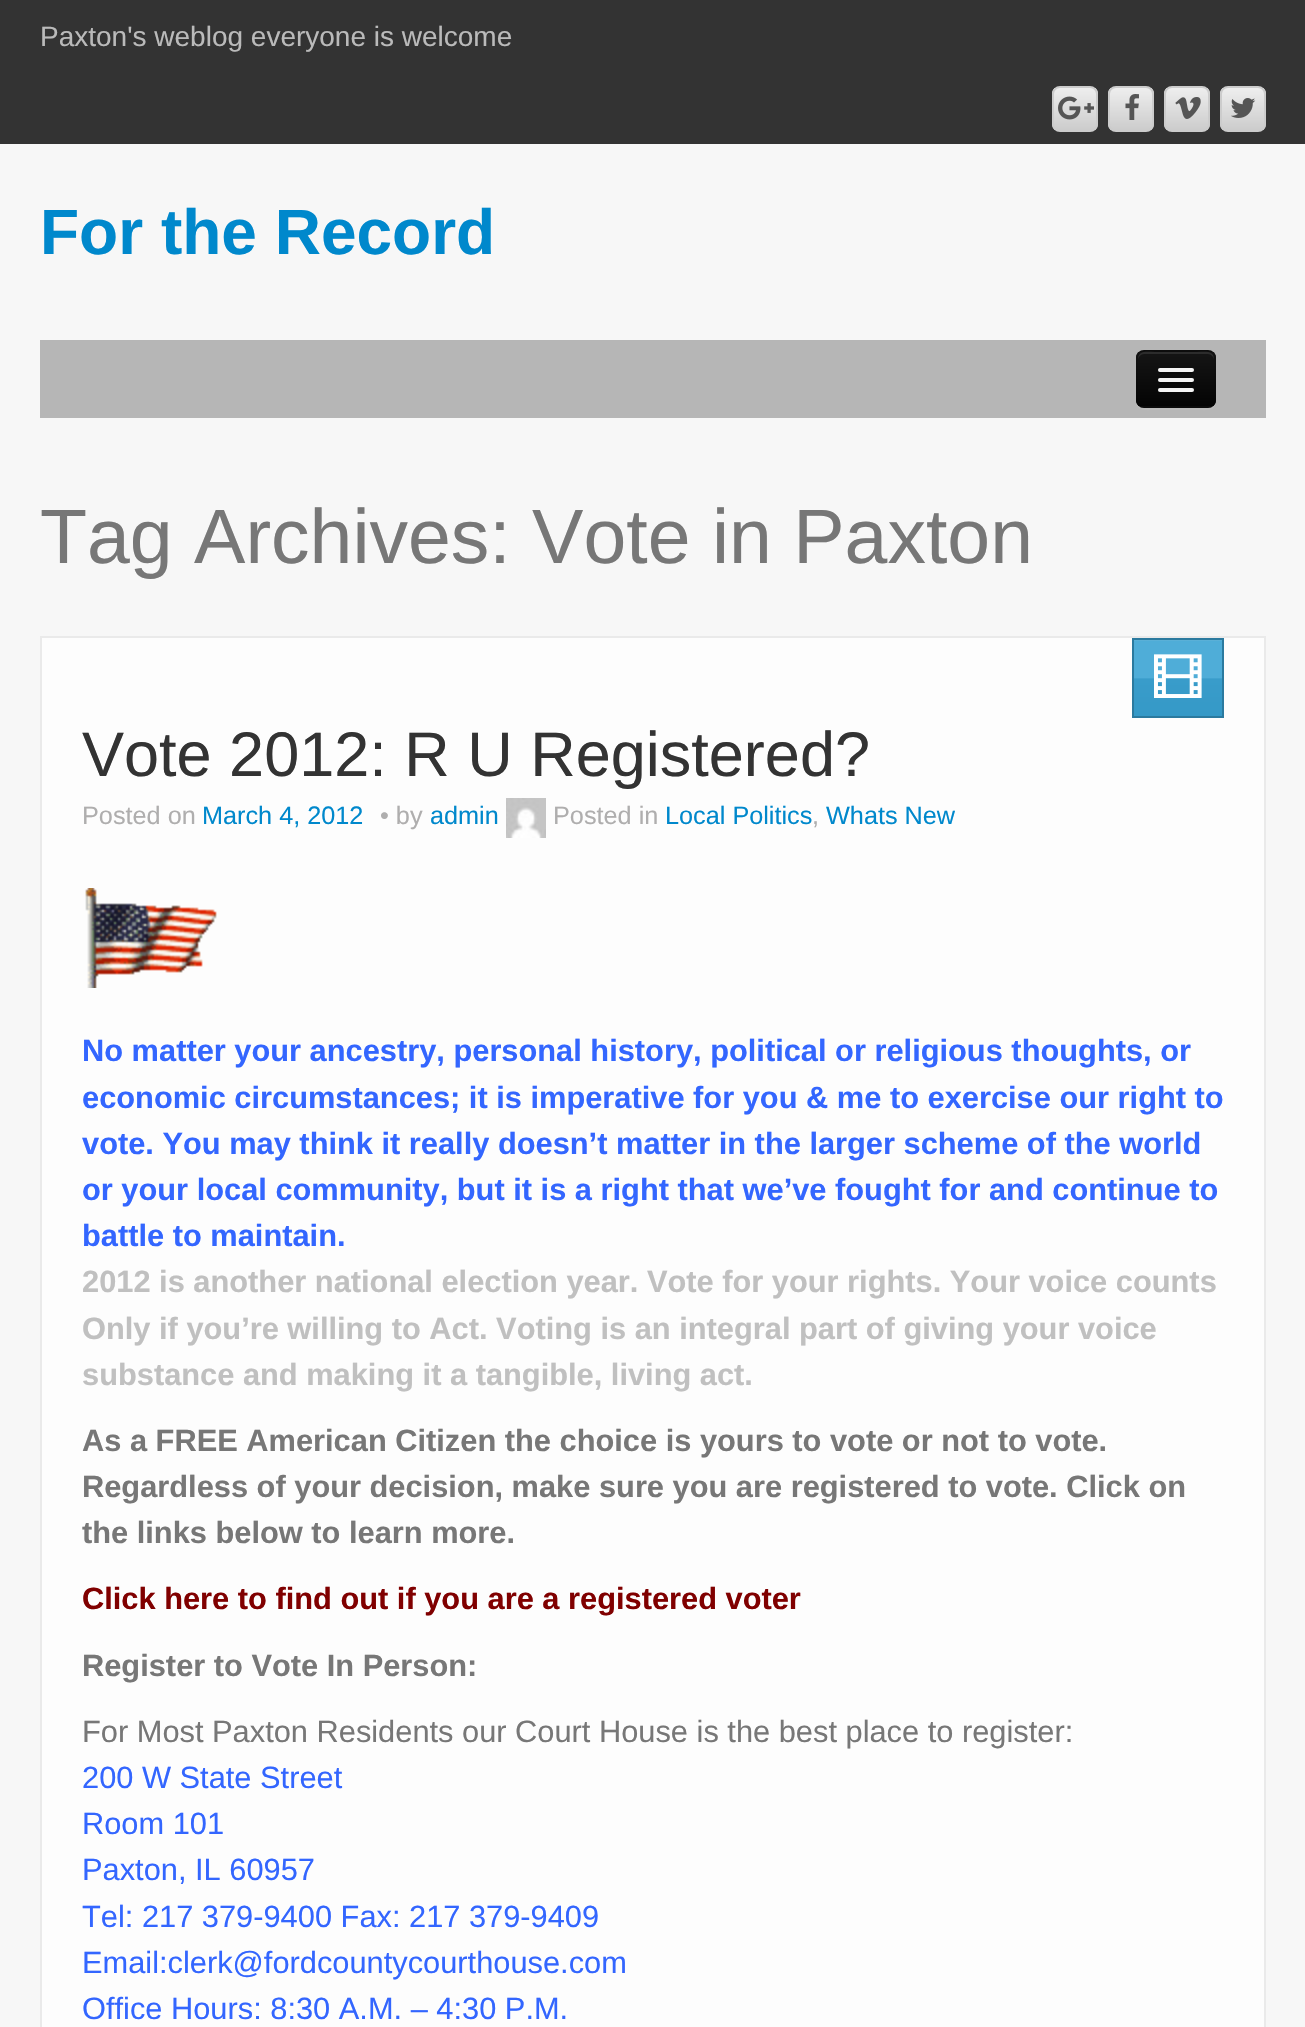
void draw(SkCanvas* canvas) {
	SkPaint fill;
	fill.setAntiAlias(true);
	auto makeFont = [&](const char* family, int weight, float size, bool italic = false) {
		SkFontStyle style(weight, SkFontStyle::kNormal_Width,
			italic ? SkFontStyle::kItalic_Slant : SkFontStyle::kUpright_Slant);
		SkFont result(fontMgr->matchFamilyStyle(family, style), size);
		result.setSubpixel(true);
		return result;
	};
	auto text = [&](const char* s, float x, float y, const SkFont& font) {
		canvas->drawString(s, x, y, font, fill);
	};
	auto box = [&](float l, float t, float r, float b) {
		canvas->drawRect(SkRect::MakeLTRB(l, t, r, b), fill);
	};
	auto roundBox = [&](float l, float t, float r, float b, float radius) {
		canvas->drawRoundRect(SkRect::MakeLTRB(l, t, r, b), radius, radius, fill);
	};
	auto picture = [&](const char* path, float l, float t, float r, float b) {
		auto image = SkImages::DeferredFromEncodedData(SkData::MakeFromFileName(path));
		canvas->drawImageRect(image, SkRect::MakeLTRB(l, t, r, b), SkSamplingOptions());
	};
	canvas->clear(0xFFF7F7F7);
	fill.setColor(0xFF333333);
	box(0, 0, 1305, 144);
	canvas->save();
	canvas->clipPath(SkPathBuilder().moveTo(1060, 86).lineTo(1090, 86).cubicTo(1094.5f, 86, 1098, 89.5f, 1098, 94).lineTo(1098, 124).cubicTo(1098, 128.5f, 1094.5f, 132, 1090, 132).lineTo(1060, 132).cubicTo(1055.5f, 132, 1052, 128.5f, 1052, 124).lineTo(1052, 94).cubicTo(1052, 89.5f, 1055.5f, 86, 1060, 86).close().detach(), true);
	{
		const SkColor colors[] = {0xFFEEEEEE, 0xFFCCCCCC};
		const float stops[] = {0, 1};
		const SkPoint ends[] = {{1075, 88}, {1075, 130}};
		fill.setShader(SkGradientShader::MakeLinear(ends, colors, stops, 2, SkTileMode::kClamp));
		fill.setAlpha(255);
	}
	box(1052, 88, 1098, 130);
	canvas->restore();
	fill.setStyle(SkPaint::kStroke_Style);
	fill.setStrokeWidth(2);
	fill.setShader(nullptr);
	fill.setColor(0xFFCCCCCC);
	canvas->drawRoundRect(SkRect::MakeLTRB(1053, 87, 1097, 131), 7, 7, fill);
	picture("image0.png", 1058, 96, 1094, 120);
	canvas->save();
	canvas->clipPath(SkPathBuilder().moveTo(1116, 86).lineTo(1146, 86).cubicTo(1150.5f, 86, 1154, 89.5f, 1154, 94).lineTo(1154, 124).cubicTo(1154, 128.5f, 1150.5f, 132, 1146, 132).lineTo(1116, 132).cubicTo(1111.5f, 132, 1108, 128.5f, 1108, 124).lineTo(1108, 94).cubicTo(1108, 89.5f, 1111.5f, 86, 1116, 86).close().detach(), true);
	fill.setStyle(SkPaint::kFill_Style);
	{
		const SkColor colors[] = {0xFFEEEEEE, 0xFFCCCCCC};
		const float stops[] = {0, 1};
		const SkPoint ends[] = {{1131, 88}, {1131, 130}};
		fill.setShader(SkGradientShader::MakeLinear(ends, colors, stops, 2, SkTileMode::kClamp));
		fill.setAlpha(255);
	}
	box(1108, 88, 1154, 130);
	canvas->restore();
	fill.setStyle(SkPaint::kStroke_Style);
	fill.setShader(nullptr);
	fill.setColor(0xFFCCCCCC);
	canvas->drawRoundRect(SkRect::MakeLTRB(1109, 87, 1153, 131), 7, 7, fill);
	picture("image1.png", 1125, 94, 1139, 120);
	canvas->save();
	canvas->clipPath(SkPathBuilder().moveTo(1172, 86).lineTo(1202, 86).cubicTo(1206.5f, 86, 1210, 89.5f, 1210, 94).lineTo(1210, 124).cubicTo(1210, 128.5f, 1206.5f, 132, 1202, 132).lineTo(1172, 132).cubicTo(1167.5f, 132, 1164, 128.5f, 1164, 124).lineTo(1164, 94).cubicTo(1164, 89.5f, 1167.5f, 86, 1172, 86).close().detach(), true);
	fill.setStyle(SkPaint::kFill_Style);
	{
		const SkColor colors[] = {0xFFEEEEEE, 0xFFCCCCCC};
		const float stops[] = {0, 1};
		const SkPoint ends[] = {{1187, 88}, {1187, 130}};
		fill.setShader(SkGradientShader::MakeLinear(ends, colors, stops, 2, SkTileMode::kClamp));
		fill.setAlpha(255);
	}
	box(1164, 88, 1210, 130);
	canvas->restore();
	fill.setStyle(SkPaint::kStroke_Style);
	fill.setShader(nullptr);
	fill.setColor(0xFFCCCCCC);
	canvas->drawRoundRect(SkRect::MakeLTRB(1165, 87, 1209, 131), 7, 7, fill);
	picture("image2.png", 1175, 97, 1201, 119);
	canvas->save();
	canvas->clipPath(SkPathBuilder().moveTo(1228, 86).lineTo(1258, 86).cubicTo(1262.5f, 86, 1266, 89.5f, 1266, 94).lineTo(1266, 124).cubicTo(1266, 128.5f, 1262.5f, 132, 1258, 132).lineTo(1228, 132).cubicTo(1223.5f, 132, 1220, 128.5f, 1220, 124).lineTo(1220, 94).cubicTo(1220, 89.5f, 1223.5f, 86, 1228, 86).close().detach(), true);
	fill.setStyle(SkPaint::kFill_Style);
	{
		const SkColor colors[] = {0xFFEEEEEE, 0xFFCCCCCC};
		const float stops[] = {0, 1};
		const SkPoint ends[] = {{1243, 88}, {1243, 130}};
		fill.setShader(SkGradientShader::MakeLinear(ends, colors, stops, 2, SkTileMode::kClamp));
		fill.setAlpha(255);
	}
	box(1220, 88, 1266, 130);
	canvas->restore();
	fill.setStyle(SkPaint::kStroke_Style);
	fill.setShader(nullptr);
	fill.setColor(0xFFCCCCCC);
	canvas->drawRoundRect(SkRect::MakeLTRB(1221, 87, 1265, 131), 7, 7, fill);
	picture("image3.png", 1231, 98, 1256, 118);
	fill.setStyle(SkPaint::kFill_Style);
	fill.setColor(0xFFB6B6B6);
	box(40, 340, 1266, 418);
	fill.setColor(0xFFBBBBBB);
	canvas->drawPath(SkPathBuilder().moveTo(1136, 400).cubicTo(1136, 412, 1145, 410, 1155, 410).lineTo(1197, 410).cubicTo(1207, 410, 1216, 412, 1216, 400).cubicTo(1216, 404, 1212, 408, 1208, 408).lineTo(1144, 408).cubicTo(1140, 408, 1136, 404, 1136, 400).close().detach(), fill);
	fill.setColor(0xFF0E0E0E);
	roundBox(1136, 350, 1216, 408, 8);
	canvas->save();
	canvas->clipPath(SkPathBuilder().moveTo(1144, 350).lineTo(1208, 350).cubicTo(1212.5f, 350, 1216, 353.5f, 1216, 358).lineTo(1216, 400).cubicTo(1216, 404.5f, 1212.5f, 408, 1208, 408).lineTo(1144, 408).cubicTo(1139.5f, 408, 1136, 404.5f, 1136, 400).lineTo(1136, 358).cubicTo(1136, 353.5f, 1139.5f, 350, 1144, 350).close().detach(), true);
	{
		const SkColor colors[] = {0xFF151515, 0xFF040404};
		const float stops[] = {0, 1};
		const SkPoint ends[] = {{1176, 352}, {1176, 406}};
		fill.setShader(SkGradientShader::MakeLinear(ends, colors, stops, 2, SkTileMode::kClamp));
		fill.setAlpha(255);
	}
	box(1136, 352, 1216, 406);
	canvas->restore();
	fill.setShader(nullptr);
	fill.setColor(0xFF2C2C2C);
	canvas->drawPath(SkPathBuilder().moveTo(1144, 354).lineTo(1208, 354).cubicTo(1211, 354, 1214, 357, 1214, 360).cubicTo(1214, 350, 1206, 352, 1197, 352).lineTo(1155, 352).cubicTo(1146, 352, 1138, 350, 1138, 360).cubicTo(1138, 357, 1141, 354, 1144, 354).close().detach(), fill);
	fill.setStyle(SkPaint::kStroke_Style);
	fill.setColor(0x40000000);
	canvas->drawPath(SkPathBuilder().moveTo(1213, 405).cubicTo(1211.5f, 406.5f, 1210, 407, 1208, 407).lineTo(1144, 407).cubicTo(1142, 407, 1140.5f, 406.5f, 1139, 405).detach(), fill);
	fill.setColor(0x1A000000);
	canvas->drawPath(SkPathBuilder().moveTo(1139, 405).cubicTo(1137.5f, 403.5f, 1137, 402, 1137, 400).lineTo(1137, 358).cubicTo(1137, 356, 1137.5f, 354.5f, 1139, 353).cubicTo(1140.5f, 351.5f, 1142, 351, 1144, 351).lineTo(1208, 351).cubicTo(1210, 351, 1211.5f, 351.5f, 1213, 353).cubicTo(1214.5f, 354.5f, 1215, 356, 1215, 358).lineTo(1215, 400).cubicTo(1215, 402, 1214.5f, 403.5f, 1213, 405).detach(), fill);
	fill.setStyle(SkPaint::kFill_Style);
	fill.setColor(0xFF0B0B0B);
	canvas->drawPath(SkPathBuilder().moveTo(1158.5f, 371).cubicTo(1156, 375, 1165, 374, 1165.5f, 374).lineTo(1186.5f, 374).cubicTo(1187, 374, 1196, 375, 1193.5f, 371).cubicTo(1193.5f, 371.5f, 1192.5f, 372, 1192, 372).lineTo(1160, 372).cubicTo(1159.5f, 372, 1158.5f, 371.5f, 1158.5f, 371).close().detach(), fill);
	fill.setColor(0xFFF5F5F5);
	roundBox(1158, 368, 1194, 372, 2);
	fill.setColor(0xFF080808);
	canvas->drawPath(SkPathBuilder().moveTo(1158.5f, 381).cubicTo(1156, 385, 1165, 384, 1165.5f, 384).lineTo(1186.5f, 384).cubicTo(1187, 384, 1196, 385, 1193.5f, 381).cubicTo(1193.5f, 381.5f, 1192.5f, 382, 1192, 382).lineTo(1160, 382).cubicTo(1159.5f, 382, 1158.5f, 381.5f, 1158.5f, 381).close().detach(), fill);
	fill.setColor(0xFFF5F5F5);
	roundBox(1158, 378, 1194, 382, 2);
	roundBox(1158, 388, 1194, 392, 2);
	fill.setColor(0xFFFDFDFD);
	canvas->drawRect(SkRect::MakeLTRB(41, 637, 1265, 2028), fill);
	fill.setStyle(SkPaint::kStroke_Style);
	fill.setColor(0xFFEAEAEA);
	canvas->drawRect(SkRect::MakeLTRB(41, 637, 1265, 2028), fill);
	fill.setStyle(SkPaint::kFill_Style);
	{
		const SkColor colors[] = {0xFF6FB7D6, 0xFF4FADD8, 0xFF4FADD8, 0xFF399CCA, 0xFF3599C7};
		const float stops[] = {0, 0.01f, 0.5f, 0.51f, 1};
		const SkPoint ends[] = {{1178, 640}, {1178, 716}};
		fill.setShader(SkGradientShader::MakeLinear(ends, colors, stops, 5, SkTileMode::kClamp));
		fill.setAlpha(255);
	}
	box(1134, 640, 1222, 716);
	fill.setStyle(SkPaint::kStroke_Style);
	fill.setShader(nullptr);
	fill.setColor(0xFF2B7A9F);
	canvas->drawRect(SkRect::MakeLTRB(1133, 639, 1223, 717), fill);
	picture("image4.png", 1154, 654, 1202, 698);
	picture("image5.png", 506, 798, 546, 838);
	picture("image6.png", 85, 888, 217, 988);
	auto font1 = makeFont("Liberation Sans", 400, 28);
	fill.setStyle(SkPaint::kFill_Style);
	fill.setColor(0xFFBABABA);
	text("Paxton's weblog everyone is welcome", 40, 46, font1);
	auto font2 = makeFont("Liberation Sans", 700, 64);
	fill.setColor(0xFF0088CC);
	text("For the Record", 40, 254, font2);
	auto font3 = makeFont("Liberation Sans", 400, 77);
	fill.setColor(0xFF777777);
	text("Tag Archives: Vote in Paxton", 40, 563, font3);
	auto font4 = makeFont("Liberation Sans", 400, 63);
	fill.setColor(0xFF333333);
	text("Vote 2012: R U Registered?", 82, 776, font4);
	auto font5 = makeFont("Liberation Sans", 400, 25.25f);
	fill.setColor(0xFFAFAEAE);
	text("Posted on", 82, 824, font5);
	fill.setColor(0xFF0088CC);
	text("March 4, 2012", 202, 824, font5);
	fill.setColor(0xFFAFAEAE);
	text("• by", 380, 824, font5);
	fill.setColor(0xFF0088CC);
	text("admin", 430, 824, font5);
	fill.setColor(0xFFAFAEAE);
	text("Posted in", 553, 824, font5);
	fill.setColor(0xFF0088CC);
	text("Local Politics", 665, 824, font5);
	fill.setColor(0xFFAFAEAE);
	text(",", 812, 824, font5);
	fill.setColor(0xFF0088CC);
	text("Whats New", 826, 824, font5);
	auto font6 = makeFont("Liberation Sans", 700, 30.8f);
	fill.setColor(0xFF3366FF);
	text("No matter your ancestry, personal history, political or religious thoughts, or", 82, 1061, font6);
	text("economic circumstances; it is imperative for you & me to exercise our right to", 82, 1108, font6);
	text("vote. You may think it really doesn’t matter in the larger scheme of the world", 82, 1154, font6);
	text("or your local community, but it is a right that we’ve fought for and continue to", 82, 1200, font6);
	text("battle to maintain.", 82, 1246, font6);
	fill.setColor(0xFFC0C0C0);
	text("2012 is another national election year. Vote for your rights. Your voice counts", 82, 1292, font6);
	text("Only if you’re willing to Act. Voting is an integral part of giving your voice", 82, 1339, font6);
	text("substance and making it a tangible, living act.", 82, 1385, font6);
	fill.setColor(0xFF777777);
	text("As a FREE American Citizen the choice is yours to vote or not to vote.", 82, 1451, font6);
	text("Regardless of your decision, make sure you are registered to vote. Click on", 82, 1497, font6);
	text("the links below to learn more.", 82, 1543, font6);
	fill.setColor(0xFF800000);
	text("Click here to find out if you are a registered voter", 82, 1609, font6);
	fill.setColor(0xFF777777);
	text("Register to Vote In Person:", 82, 1676, font6);
	auto font7 = makeFont("Liberation Sans", 400, 30.8f);
	text("For Most Paxton Residents our Court House is the best place to register:", 82, 1742, font7);
	fill.setColor(0xFF3366FF);
	text("200 W State Street", 82, 1788, font7);
	text("Room 101", 82, 1834, font7);
	text("Paxton, IL 60957", 82, 1880, font7);
	text("Tel: 217 379-9400 Fax: 217 379-9409", 82, 1927, font7);
	text("Email:clerk@fordcountycourthouse.com", 82, 1973, font7);
	text("Office Hours: 8:30 A.M. – 4:30 P.M.", 82, 2019, font7);
}
